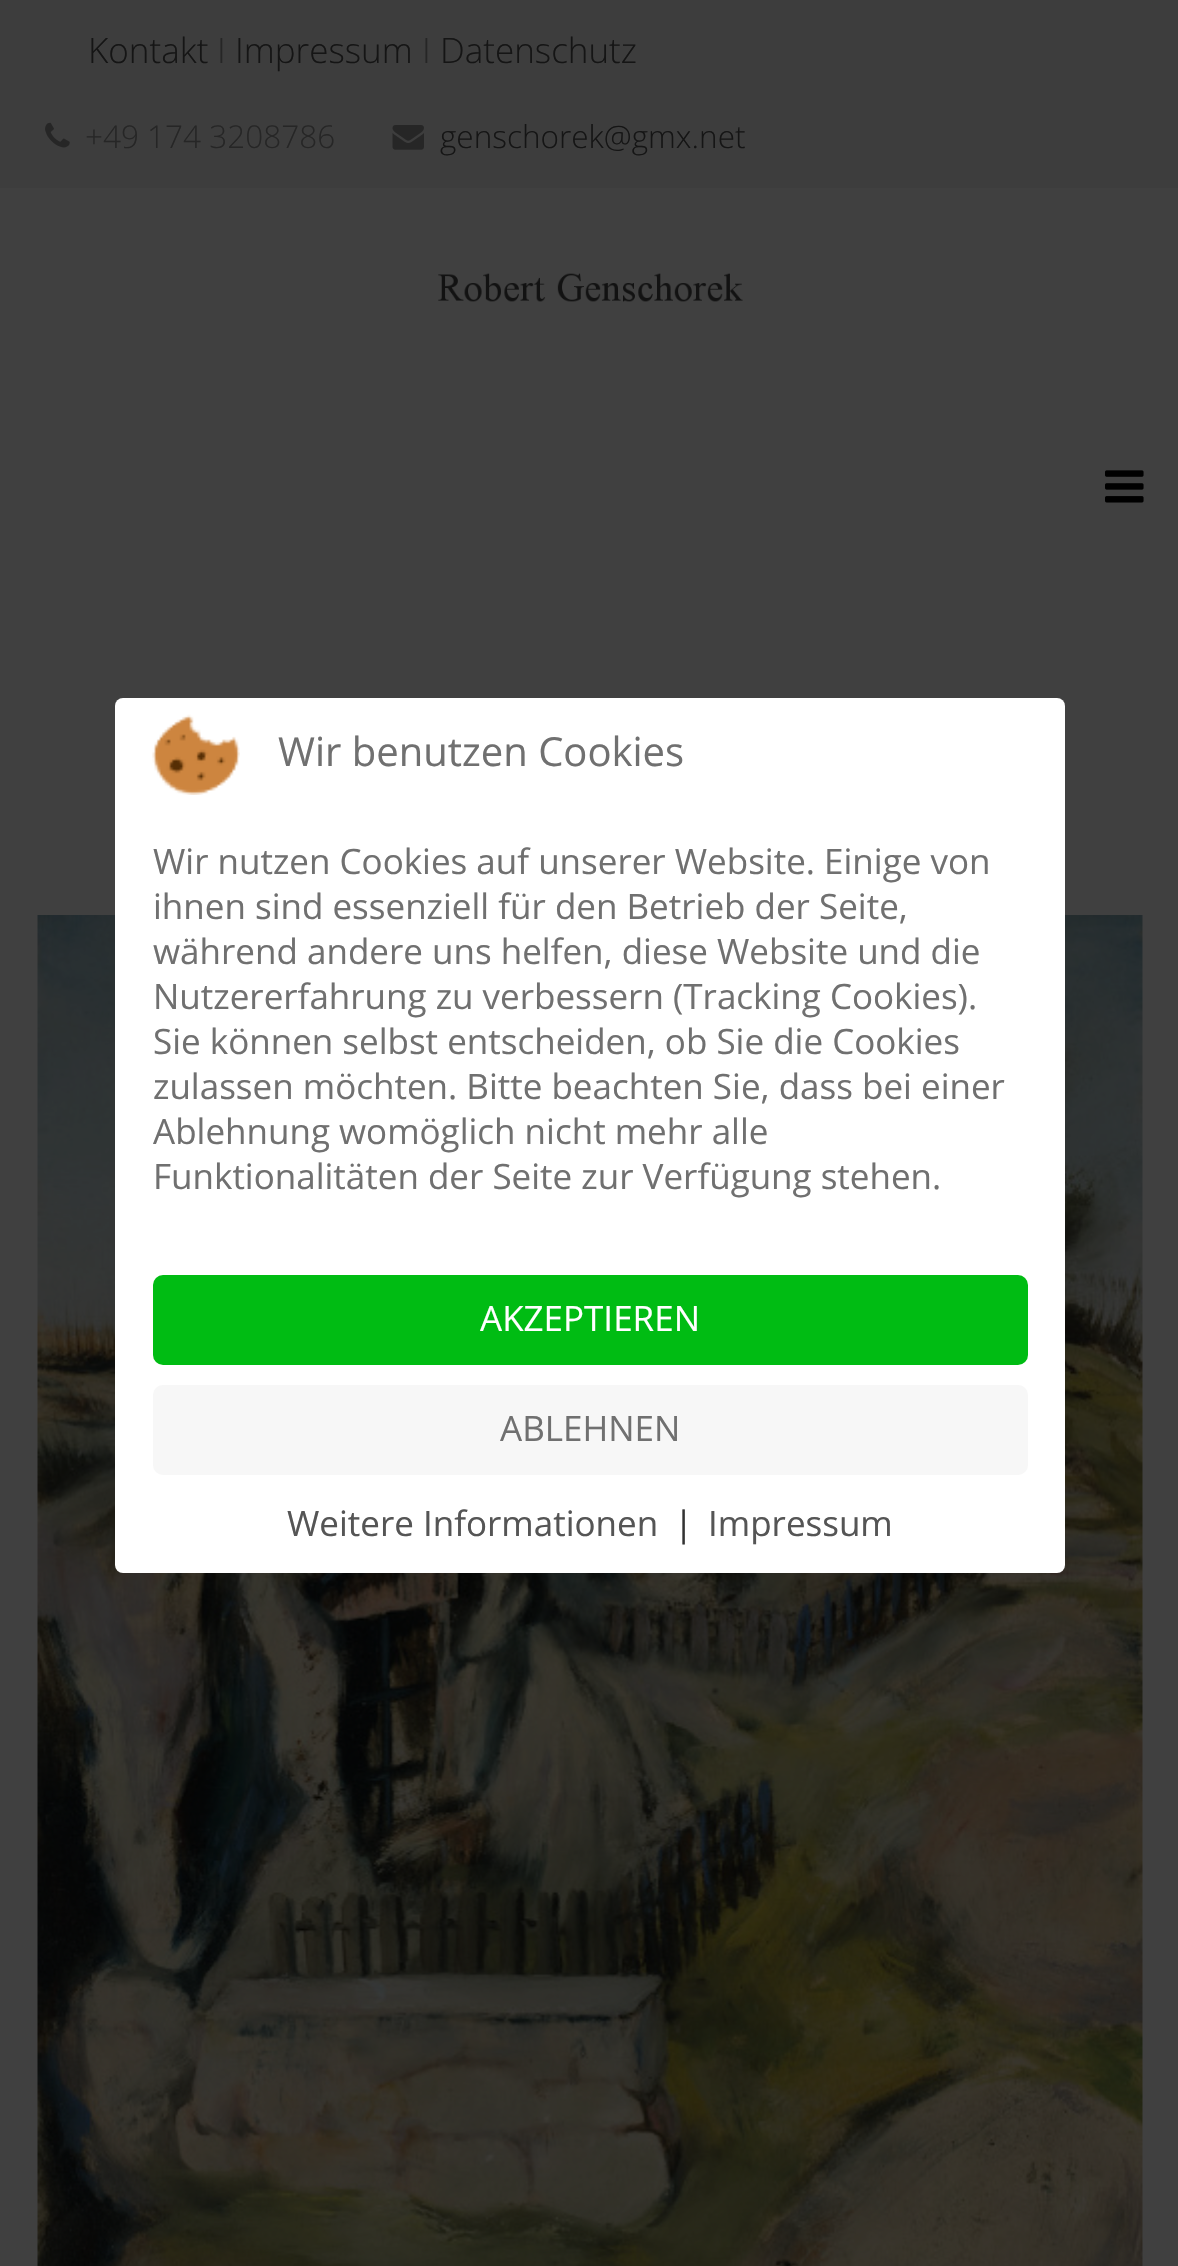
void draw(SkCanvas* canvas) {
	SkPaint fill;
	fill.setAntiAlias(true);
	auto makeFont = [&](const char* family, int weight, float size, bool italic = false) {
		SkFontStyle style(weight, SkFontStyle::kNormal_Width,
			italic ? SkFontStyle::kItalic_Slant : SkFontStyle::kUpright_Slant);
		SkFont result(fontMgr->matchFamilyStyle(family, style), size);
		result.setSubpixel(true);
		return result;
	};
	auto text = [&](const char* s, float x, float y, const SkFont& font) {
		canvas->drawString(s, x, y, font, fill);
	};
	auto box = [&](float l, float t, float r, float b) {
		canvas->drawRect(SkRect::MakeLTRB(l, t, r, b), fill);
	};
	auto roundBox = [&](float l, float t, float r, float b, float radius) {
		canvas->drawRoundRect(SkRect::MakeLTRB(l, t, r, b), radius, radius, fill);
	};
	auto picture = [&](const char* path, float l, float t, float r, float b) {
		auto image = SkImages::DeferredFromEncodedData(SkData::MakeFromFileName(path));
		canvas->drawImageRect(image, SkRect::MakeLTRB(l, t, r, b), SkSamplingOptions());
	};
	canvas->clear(0xFF404040);
	fill.setColor(0xFF3D3D3D);
	box(0, 0, 1178, 188);
	picture("image0.png", 45, 122, 70, 148);
	picture("image1.png", 392, 125, 424, 150);
	picture("image2.png", 438, 273, 743, 302);
	picture("image3.png", 1105, 470, 1144, 503);
	picture("image4.png", 37, 915, 1143, 2266);
	fill.setColor(0xFFFFFFFF);
	roundBox(115, 698, 1065, 1573, 8);
	picture("image5.png", 152, 714, 240, 795);
	fill.setColor(0xFF00BC13);
	roundBox(153, 1275, 1028, 1365, 10);
	fill.setColor(0xFFF7F7F7);
	roundBox(153, 1385, 1028, 1475, 10);
	auto font1 = makeFont("Open Sans", 300, 35);
	fill.setColor(0xFF151515);
	text("Kontakt", 88, 63, font1);
	fill.setColor(0xFF262626);
	text("I", 217, 63, font1);
	fill.setColor(0xFF151515);
	text("Impressum", 235, 63, font1);
	fill.setColor(0xFF262626);
	text("I", 422, 63, font1);
	fill.setColor(0xFF151515);
	text("Datenschutz", 440, 63, font1);
	auto font2 = makeFont("Open Sans", 300, 31.5f);
	fill.setColor(0xFF262626);
	text("+49 174 3208786", 85, 148, font2);
	fill.setColor(0xFF151515);
	text("genschorek@gmx.net", 440, 148, font2);
	auto font3 = makeFont("Open Sans", 400, 40);
	fill.setColor(0xFF707070);
	text("Wir benutzen Cookies", 278, 766, font3);
	auto font4 = makeFont("Open Sans", 400, 35);
	text("Wir nutzen Cookies auf unserer Website. Einige von", 153, 874, font4);
	text("ihnen sind essenziell für den Betrieb der Seite,", 153, 919, font4);
	text("während andere uns helfen, diese Website und die", 153, 964, font4);
	text("Nutzererfahrung zu verbessern (Tracking Cookies).", 153, 1009, font4);
	text("Sie können selbst entscheiden, ob Sie die Cookies", 153, 1054, font4);
	text("zulassen möchten. Bitte beachten Sie, dass bei einer", 153, 1099, font4);
	text("Ablehnung womöglich nicht mehr alle", 153, 1144, font4);
	text("Funktionalitäten der Seite zur Verfügung stehen.", 153, 1189, font4);
	fill.setColor(0xFFFFFFFF);
	text("AKZEPTIEREN", 480, 1331, font4);
	fill.setColor(0xFF707070);
	text("ABLEHNEN", 500, 1441, font4);
	fill.setColor(0xFF555555);
	text("Weitere Informationen", 287, 1536, font4);
	fill.setColor(0xFF333333);
	text("|", 674, 1536, font4);
	fill.setColor(0xFF555555);
	text("Impressum", 708, 1536, font4);
}
